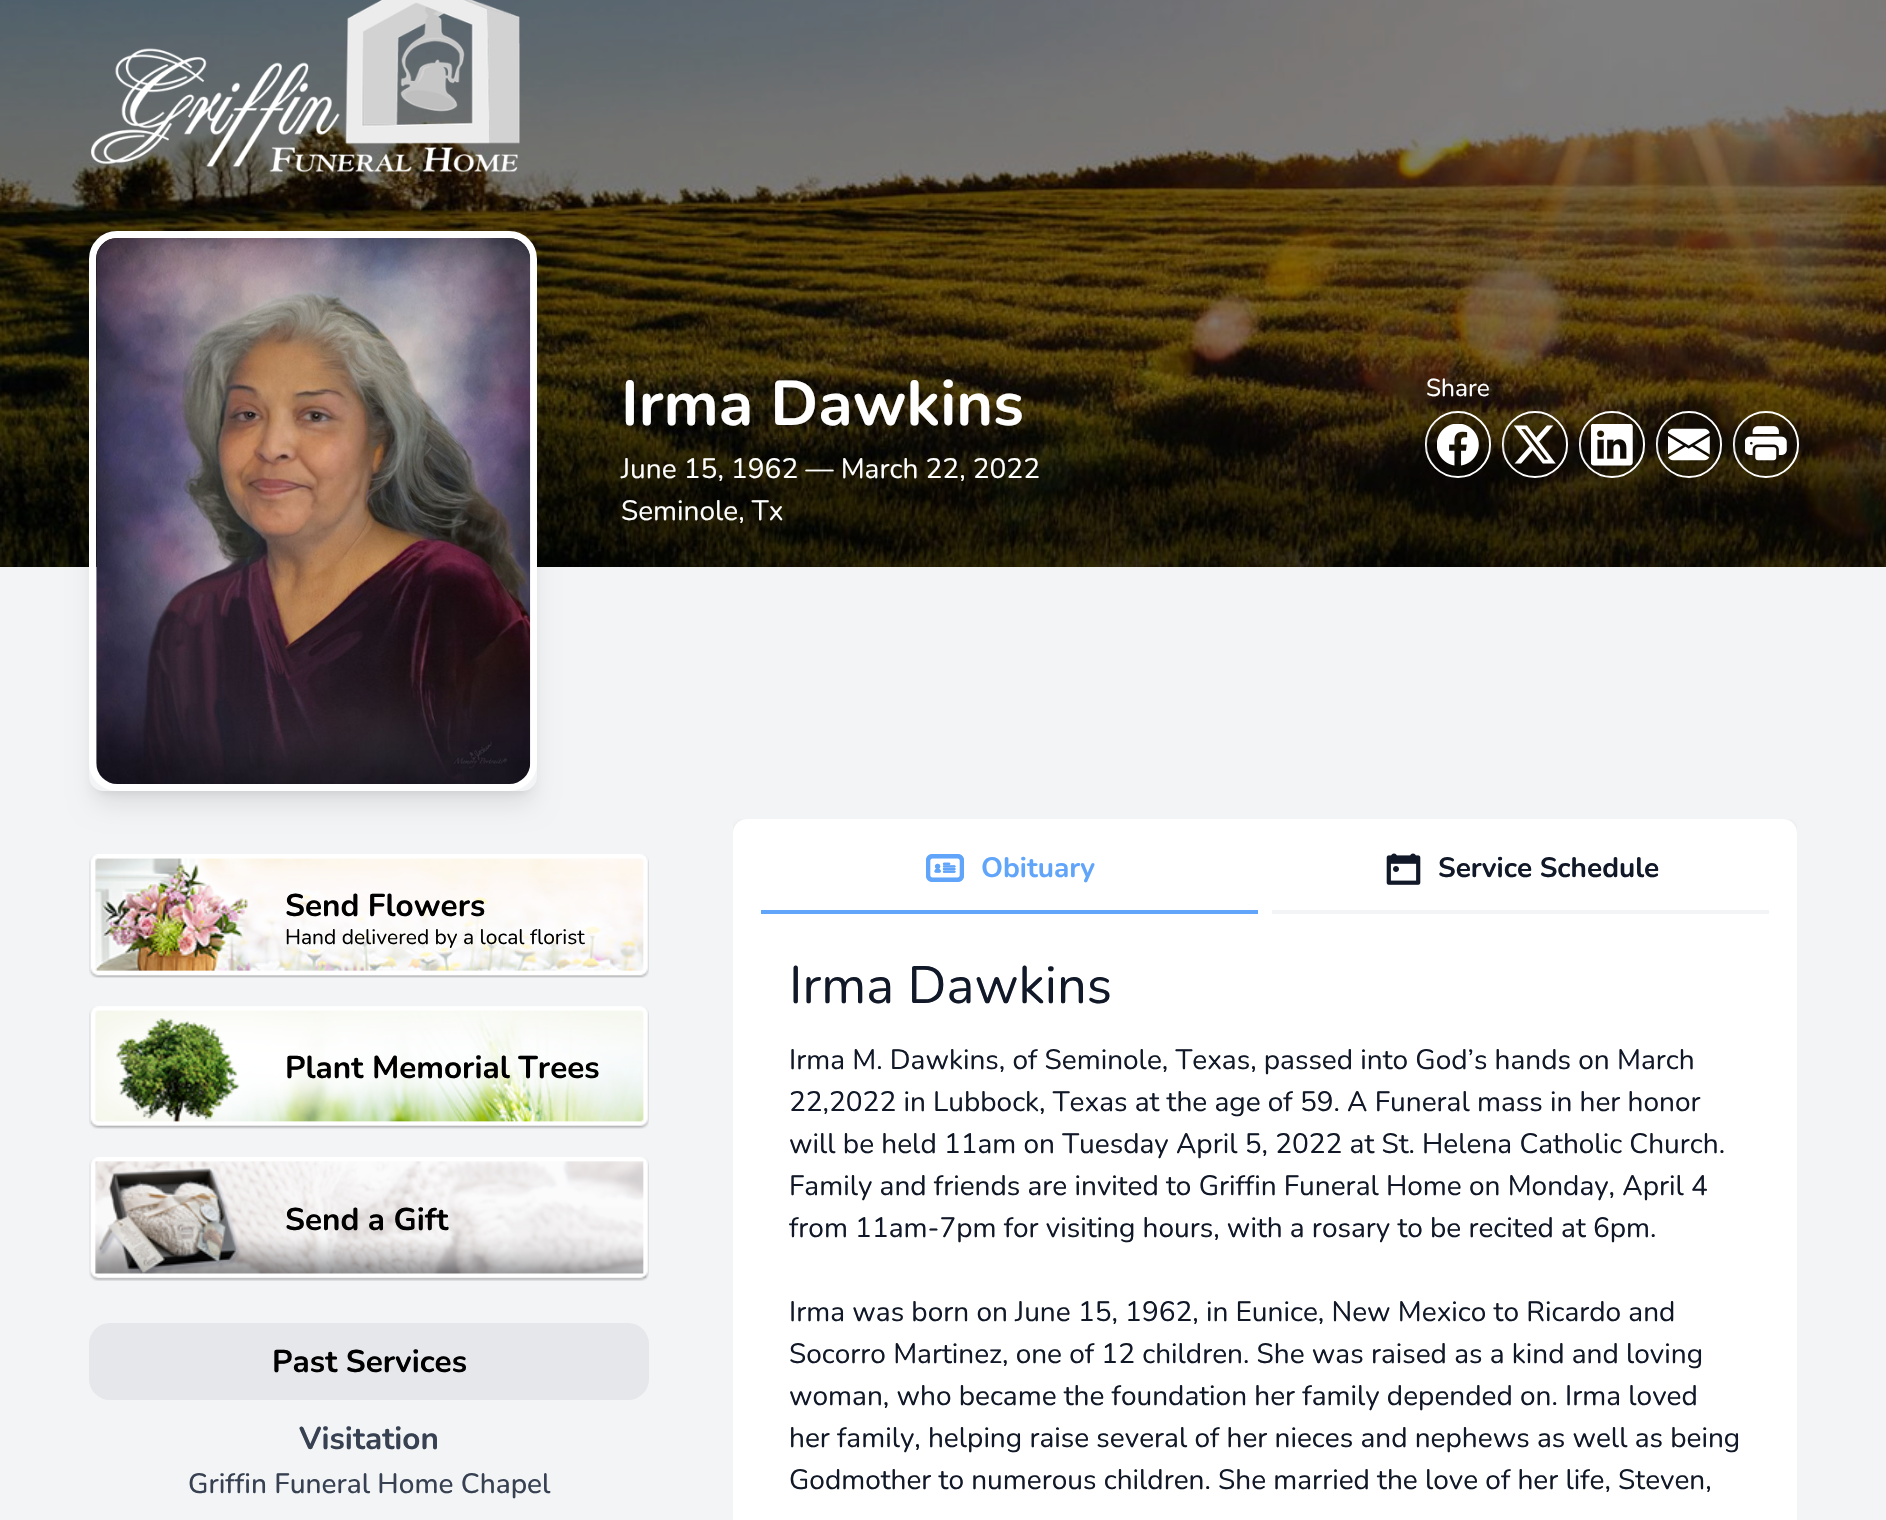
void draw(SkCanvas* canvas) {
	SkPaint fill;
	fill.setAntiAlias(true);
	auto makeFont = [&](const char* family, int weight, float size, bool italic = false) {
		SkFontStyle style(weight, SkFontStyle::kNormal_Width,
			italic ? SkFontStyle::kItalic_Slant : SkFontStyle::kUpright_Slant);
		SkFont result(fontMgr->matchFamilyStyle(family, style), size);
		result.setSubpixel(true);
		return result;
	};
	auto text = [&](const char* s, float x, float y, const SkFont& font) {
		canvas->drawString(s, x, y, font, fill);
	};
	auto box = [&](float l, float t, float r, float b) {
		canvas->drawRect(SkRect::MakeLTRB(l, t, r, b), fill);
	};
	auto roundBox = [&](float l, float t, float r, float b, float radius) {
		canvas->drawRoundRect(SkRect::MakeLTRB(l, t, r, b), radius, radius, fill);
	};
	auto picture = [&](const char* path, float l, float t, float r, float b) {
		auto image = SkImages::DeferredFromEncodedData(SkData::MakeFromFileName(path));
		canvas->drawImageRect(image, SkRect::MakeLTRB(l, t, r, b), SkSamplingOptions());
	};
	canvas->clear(0xFFF3F4F6);
	picture("image0.png", 0, 0, 1886, 567);
	picture("image1.png", 91, 0, 520, 173);
	canvas->save();
	canvas->clipPath(SkPathBuilder(SkPathFillType::kEvenOdd).moveTo(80, 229).lineTo(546, 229).lineTo(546, 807).lineTo(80, 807).close().moveTo(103, 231).lineTo(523, 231).cubicTo(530.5f, 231, 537, 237.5f, 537, 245).lineTo(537, 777).cubicTo(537, 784.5f, 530.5f, 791, 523, 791).lineTo(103, 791).cubicTo(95.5f, 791, 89, 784.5f, 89, 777).lineTo(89, 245).cubicTo(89, 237.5f, 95.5f, 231, 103, 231).close().detach(), true);
	fill.setColor(0x1A000000);
	fill.setMaskFilter(SkMaskFilter::MakeBlur(kNormal_SkBlurStyle, 5));
	canvas->drawRoundRect(SkRect::MakeLTRB(96, 245, 530, 791), 7, 7, fill);
	fill.setMaskFilter(nullptr);
	canvas->restore();
	canvas->save();
	canvas->clipPath(SkPathBuilder(SkPathFillType::kEvenOdd).moveTo(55, 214).lineTo(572, 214).lineTo(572, 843).lineTo(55, 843).close().moveTo(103, 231).lineTo(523, 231).cubicTo(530.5f, 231, 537, 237.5f, 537, 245).lineTo(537, 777).cubicTo(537, 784.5f, 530.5f, 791, 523, 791).lineTo(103, 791).cubicTo(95.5f, 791, 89, 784.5f, 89, 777).lineTo(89, 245).cubicTo(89, 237.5f, 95.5f, 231, 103, 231).close().detach(), true);
	fill.setMaskFilter(SkMaskFilter::MakeBlur(kNormal_SkBlurStyle, 13));
	canvas->drawRoundRect(SkRect::MakeLTRB(95, 254, 532, 803), 9, 9, fill);
	fill.setMaskFilter(nullptr);
	canvas->restore();
	fill.setStyle(SkPaint::kStroke_Style);
	fill.setStrokeWidth(7);
	fill.setColor(0xFFFFFFFF);
	canvas->drawRoundRect(SkRect::MakeLTRB(92.5f, 234.5f, 533.5f, 787.5f), 24.5f, 24.5f, fill);
	picture("image2.png", 96, 238, 531, 784);
	fill.setStrokeWidth(2);
	canvas->drawRoundRect(SkRect::MakeLTRB(1426, 412, 1490, 477), 32, 32, fill);
	fill.setStyle(SkPaint::kFill_Style);
	fill.setColor(0x33000000);
	canvas->drawCircle(1457.5f, 444.5f, 31.5f, fill);
	picture("image3.png", 1437, 424, 1479, 466);
	fill.setStyle(SkPaint::kStroke_Style);
	fill.setColor(0xFFFFFFFF);
	canvas->drawRoundRect(SkRect::MakeLTRB(1503, 412, 1567, 477), 32, 32, fill);
	fill.setStyle(SkPaint::kFill_Style);
	fill.setColor(0x33000000);
	canvas->drawCircle(1534.5f, 444.5f, 31.5f, fill);
	picture("image4.png", 1514, 425, 1556, 464);
	fill.setStyle(SkPaint::kStroke_Style);
	fill.setColor(0xFFFFFFFF);
	canvas->drawRoundRect(SkRect::MakeLTRB(1580, 412, 1644, 477), 32, 32, fill);
	fill.setStyle(SkPaint::kFill_Style);
	fill.setColor(0x33000000);
	canvas->drawCircle(1611.5f, 444.5f, 31.5f, fill);
	picture("image5.png", 1591, 424, 1633, 466);
	fill.setStyle(SkPaint::kStroke_Style);
	fill.setColor(0xFFFFFFFF);
	canvas->drawRoundRect(SkRect::MakeLTRB(1657, 412, 1721, 477), 32, 32, fill);
	fill.setStyle(SkPaint::kFill_Style);
	fill.setColor(0x33000000);
	canvas->drawCircle(1688.5f, 444.5f, 31.5f, fill);
	picture("image6.png", 1668, 428, 1710, 461);
	fill.setStyle(SkPaint::kStroke_Style);
	fill.setColor(0xFFFFFFFF);
	canvas->drawRoundRect(SkRect::MakeLTRB(1734, 412, 1798, 477), 32, 32, fill);
	fill.setStyle(SkPaint::kFill_Style);
	fill.setColor(0x33000000);
	canvas->drawCircle(1765.5f, 444.5f, 31.5f, fill);
	picture("image7.png", 1745, 426, 1787, 461);
	picture("image8.png", 89, 854, 649, 978);
	picture("image9.png", 89, 1006, 649, 1129);
	picture("image10.png", 89, 1157, 649, 1281);
	fill.setColor(0xFFE5E7EB);
	roundBox(89, 1323, 649, 1400, 21);
	canvas->save();
	canvas->clipRect(SkRect::MakeLTRB(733, 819, 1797, 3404));
	fill.setColor(0x1A000000);
	fill.setMaskFilter(SkMaskFilter::MakeBlur(kNormal_SkBlurStyle, 2.5f));
	canvas->drawRoundRect(SkRect::MakeLTRB(733, 821, 1797, 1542), 14, 14, fill);
	fill.setMaskFilter(nullptr);
	canvas->restore();
	fill.setColor(0xFFFFFFFF);
	roundBox(733, 819, 1797, 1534, 14);
	fill.setColor(0xFF60A5FA);
	box(761, 910, 1258, 914);
	picture("image11.png", 926, 854, 964, 882);
	fill.setColor(0xFFF3F4F6);
	box(1272, 910, 1769, 914);
	picture("image12.png", 1386, 853, 1421, 885);
	auto font1 = makeFont("Nunito", 700, 63);
	fill.setColor(0xFFFFFFFF);
	text("Irma Dawkins", 621, 425, font1);
	auto font2 = makeFont("Nunito", 400, 28);
	text("June 15, 1962 — March 22, 2022", 621, 478, font2);
	text("Seminole, Tx", 621, 520, font2);
	auto font3 = makeFont("Nunito", 400, 24.5f);
	text("Share", 1426, 396, font3);
	auto font4 = makeFont("Nunito", 700, 31.5f);
	fill.setColor(0xFF000000);
	text("Send Flowers", 285, 916, font4);
	auto font5 = makeFont("Nunito", 400, 21);
	text("Hand delivered by a local florist", 285, 944, font5);
	text("Plant Memorial Trees", 285, 1078, font4);
	text("Send a Gift", 285, 1230, font4);
	text("Past Services", 272, 1372, font4);
	fill.setColor(0xFF374151);
	text("Visitation", 299, 1449, font4);
	auto font6 = makeFont("Nunito", 500, 28);
	text("Griffin Funeral Home Chapel", 188, 1493, font6);
	auto font7 = makeFont("Nunito", 700, 28);
	fill.setColor(0xFF60A5FA);
	text("Obituary", 981, 877, font7);
	fill.setColor(0xFF111827);
	text("Service Schedule", 1438, 877, font7);
	auto font8 = makeFont("Nunito", 400, 52.5f);
	text("Irma Dawkins", 789, 1003, font8);
	text("Irma M. Dawkins, of Seminole, Texas, passed into God’s hands on March", 789, 1069, font2);
	text("22,2022 in Lubbock, Texas at the age of 59. A Funeral mass in her honor", 789, 1111, font2);
	text("will be held 11am on Tuesday April 5, 2022 at St. Helena Catholic Church.", 789, 1153, font2);
	text("Family and friends are invited to Griffin Funeral Home on Monday, April 4", 789, 1195, font2);
	text("from 11am-7pm for visiting hours, with a rosary to be recited at 6pm.", 789, 1237, font2);
	text("Irma was born on June 15, 1962, in Eunice, New Mexico to Ricardo and", 789, 1321, font2);
	text("Socorro Martinez, one of 12 children. She was raised as a kind and loving", 789, 1363, font2);
	text("woman, who became the foundation her family depended on. Irma loved", 789, 1405, font2);
	text("her family, helping raise several of her nieces and nephews as well as being", 789, 1447, font2);
	text("Godmother to numerous children. She married the love of her life, Steven,", 789, 1489, font2);
}
